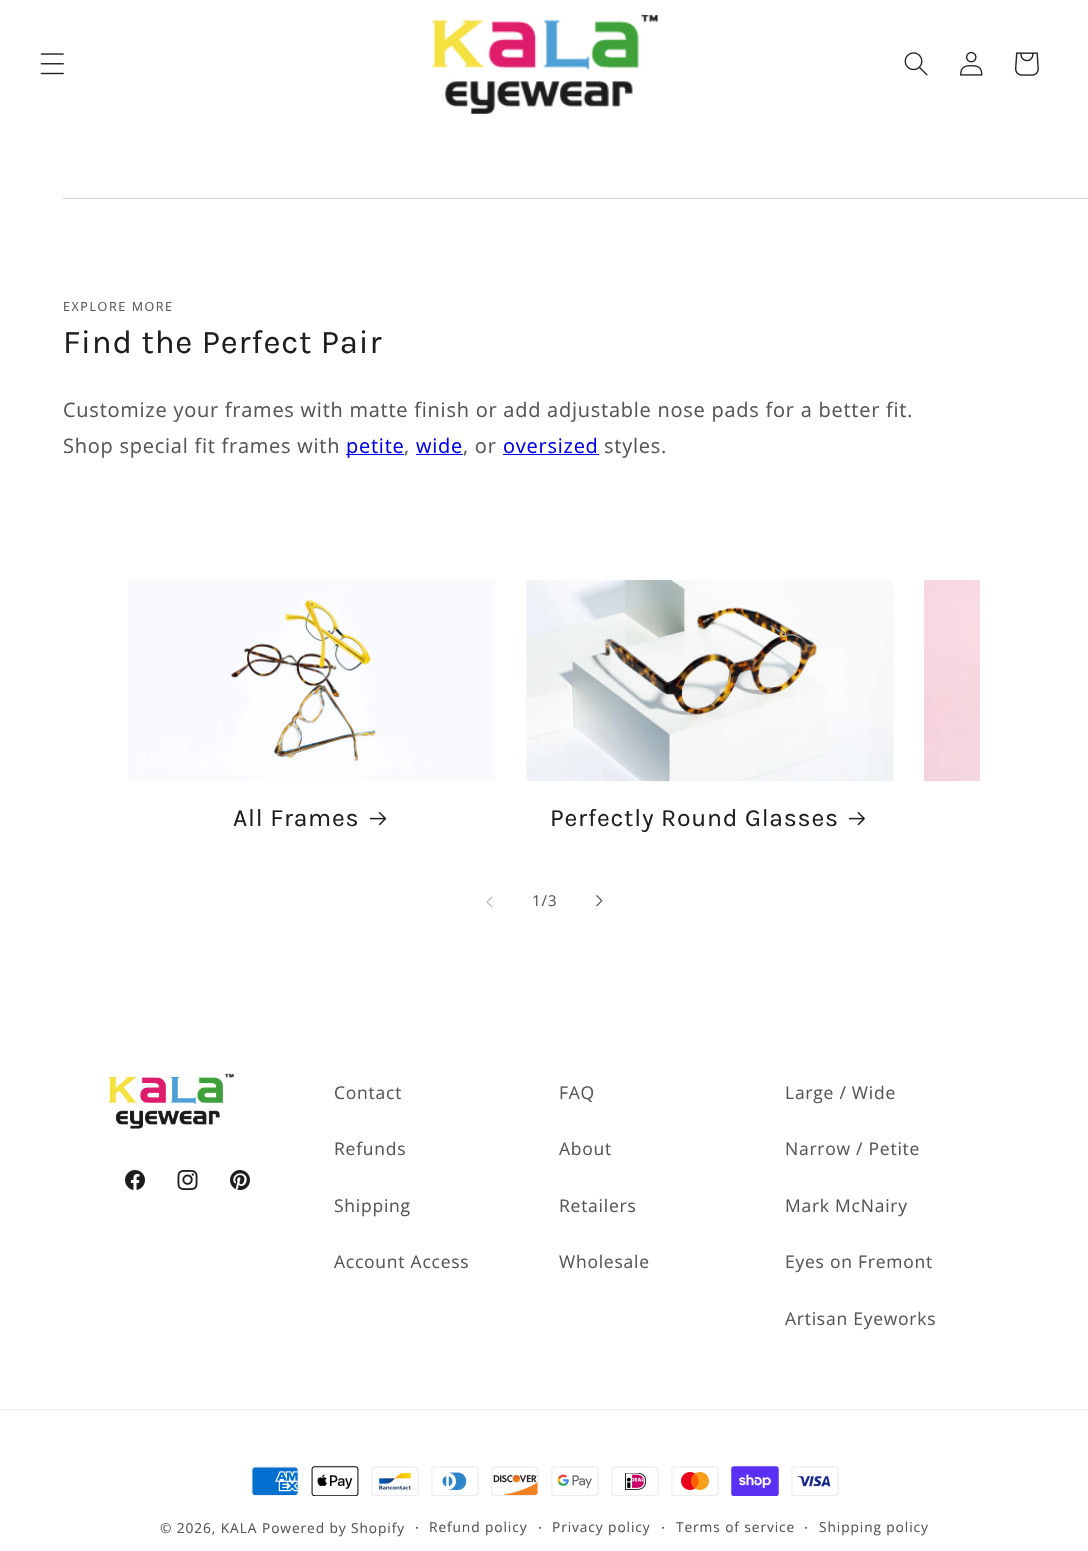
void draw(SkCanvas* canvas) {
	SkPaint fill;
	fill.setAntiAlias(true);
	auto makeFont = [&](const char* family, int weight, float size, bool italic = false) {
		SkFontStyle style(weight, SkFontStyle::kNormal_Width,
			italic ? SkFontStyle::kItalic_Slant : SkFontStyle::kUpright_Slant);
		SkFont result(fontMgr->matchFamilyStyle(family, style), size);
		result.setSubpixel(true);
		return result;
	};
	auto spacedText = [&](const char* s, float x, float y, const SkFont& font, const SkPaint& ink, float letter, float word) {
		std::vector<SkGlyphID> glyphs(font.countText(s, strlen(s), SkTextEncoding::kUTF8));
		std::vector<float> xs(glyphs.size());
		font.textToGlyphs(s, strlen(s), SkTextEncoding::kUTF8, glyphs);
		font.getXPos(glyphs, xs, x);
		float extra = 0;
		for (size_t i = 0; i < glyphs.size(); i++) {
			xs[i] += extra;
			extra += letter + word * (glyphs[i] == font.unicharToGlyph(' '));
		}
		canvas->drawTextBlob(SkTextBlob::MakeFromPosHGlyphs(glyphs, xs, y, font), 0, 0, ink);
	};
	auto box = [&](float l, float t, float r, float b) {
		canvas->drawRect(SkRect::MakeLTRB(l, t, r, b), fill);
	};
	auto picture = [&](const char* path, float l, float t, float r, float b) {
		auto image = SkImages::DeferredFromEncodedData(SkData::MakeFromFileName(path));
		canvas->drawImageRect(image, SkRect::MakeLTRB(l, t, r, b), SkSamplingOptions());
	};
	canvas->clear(0xFFFFFFFF);
	picture("image0.png", 40, 53, 64, 75);
	picture("image1.png", 432, 14, 658, 114);
	picture("image2.png", 904, 52, 928, 76);
	picture("image3.png", 960, 51, 983, 76);
	picture("image4.png", 1015, 52, 1039, 76);
	fill.setColor(0xFFD2D2D2);
	box(63, 198, 1088, 199);
	fill.setColor(0xFF0000EE);
	box(346, 454, 404, 455);
	box(416, 454, 463, 455);
	box(503, 454, 599, 455);
	picture("image5.png", 924, 580, 980, 781);
	picture("image6.png", 128, 580, 495, 781);
	picture("image7.png", 370, 812, 387, 826);
	picture("image8.png", 526, 580, 894, 782);
	picture("image9.png", 849, 812, 865, 826);
	picture("image10.png", 486, 896, 493, 908);
	picture("image11.png", 596, 895, 603, 907);
	picture("image12.png", 108, 1073, 234, 1129);
	picture("image13.png", 125, 1170, 145, 1190);
	picture("image14.png", 177, 1170, 198, 1190);
	picture("image15.png", 230, 1170, 250, 1190);
	fill.setColor(0xFFEDEDED);
	box(0, 1409, 1088, 1410);
	picture("image16.png", 251, 1466, 299, 1496);
	picture("image17.png", 311, 1466, 359, 1496);
	picture("image18.png", 371, 1466, 419, 1496);
	picture("image19.png", 431, 1466, 479, 1496);
	picture("image20.png", 491, 1466, 539, 1496);
	picture("image21.png", 551, 1466, 599, 1496);
	picture("image22.png", 611, 1466, 659, 1496);
	picture("image23.png", 671, 1466, 719, 1496);
	picture("image24.png", 731, 1466, 779, 1496);
	picture("image25.png", 791, 1466, 839, 1496);
	auto font1 = makeFont("Open Sans", 400, 12.5f);
	fill.setColor(0xFF565656);
	spacedText("EXPLORE MORE", 63, 311, font1, fill, 1.6f, 0);
	auto font2 = makeFont("Karla", 400, 33);
	fill.setColor(0xFF1D1D1D);
	spacedText("Find the Perfect Pair", 63, 353, font2, fill, 0.8f, 0);
	auto font3 = makeFont("Open Sans", 400, 20);
	fill.setColor(0xFF565656);
	spacedText("Customize your frames with matte finish or add adjustable nose pads for a better fit.", 63, 417, font3, fill, 0.75f, 0);
	spacedText("Shop special fit frames with", 63, 453, font3, fill, 0.75f, 0);
	fill.setColor(0xFF0000EE);
	spacedText("petite", 346, 453, font3, fill, 0.75f, 0);
	fill.setColor(0xFF565656);
	spacedText(",", 404, 453, font3, fill, 0.75f, 0);
	fill.setColor(0xFF0000EE);
	spacedText("wide", 416, 453, font3, fill, 0.75f, 0);
	fill.setColor(0xFF565656);
	spacedText(", or", 463, 453, font3, fill, 0.75f, 0);
	fill.setColor(0xFF0000EE);
	spacedText("oversized", 503, 453, font3, fill, 0.75f, 0);
	fill.setColor(0xFF565656);
	spacedText("styles.", 604, 453, font3, fill, 0.75f, 0);
	auto font4 = makeFont("Karla", 400, 24.75f);
	fill.setColor(0xFF1D1D1D);
	spacedText("All Frames", 233, 826, font4, fill, 0.8f, 0);
	spacedText("Perfectly Round Glasses", 550, 826, font4, fill, 0.8f, 0);
	auto font5 = makeFont("Open Sans", 400, 15);
	fill.setColor(0xFF565656);
	spacedText("1/3", 532, 906, font5, fill, 0.9f, 0);
	auto font6 = makeFont("Open Sans", 400, 17.5f);
	spacedText("Contact", 334, 1099, font6, fill, 0.75f, 0);
	spacedText("Refunds", 334, 1155, font6, fill, 0.75f, 0);
	spacedText("Shipping", 334, 1212, font6, fill, 0.75f, 0);
	spacedText("Account Access", 334, 1268, font6, fill, 0.75f, 0);
	spacedText("FAQ", 559, 1099, font6, fill, 0.75f, 0);
	spacedText("About", 559, 1155, font6, fill, 0.75f, 0);
	spacedText("Retailers", 559, 1212, font6, fill, 0.75f, 0);
	spacedText("Wholesale", 559, 1268, font6, fill, 0.75f, 0);
	spacedText("Large / Wide", 785, 1099, font6, fill, 0.75f, 0);
	spacedText("Narrow / Petite", 785, 1155, font6, fill, 0.75f, 0);
	spacedText("Mark McNairy", 785, 1212, font6, fill, 0.75f, 0);
	spacedText("Eyes on Fremont", 785, 1268, font6, fill, 0.75f, 0);
	spacedText("Artisan Eyeworks", 785, 1325, font6, fill, 0.75f, 0);
	auto font7 = makeFont("Open Sans", 400, 13.75f);
	spacedText("© 2026, KALA", 160, 1533, font7, fill, 0.9f, 0);
	spacedText("Powered by Shopify", 262, 1533, font7, fill, 0.9f, 0);
	spacedText("·", 415, 1533, font5, fill, 0.9f, 0);
	spacedText("Refund policy", 429, 1532, font7, fill, 0.9f, 0);
	spacedText("·", 538, 1533, font5, fill, 0.9f, 0);
	spacedText("Privacy policy", 552, 1532, font7, fill, 0.9f, 0);
	spacedText("·", 661, 1533, font5, fill, 0.9f, 0);
	spacedText("Terms of service", 676, 1532, font7, fill, 0.9f, 0);
	spacedText("·", 804, 1533, font5, fill, 0.9f, 0);
	spacedText("Shipping policy", 819, 1532, font7, fill, 0.9f, 0);
}
